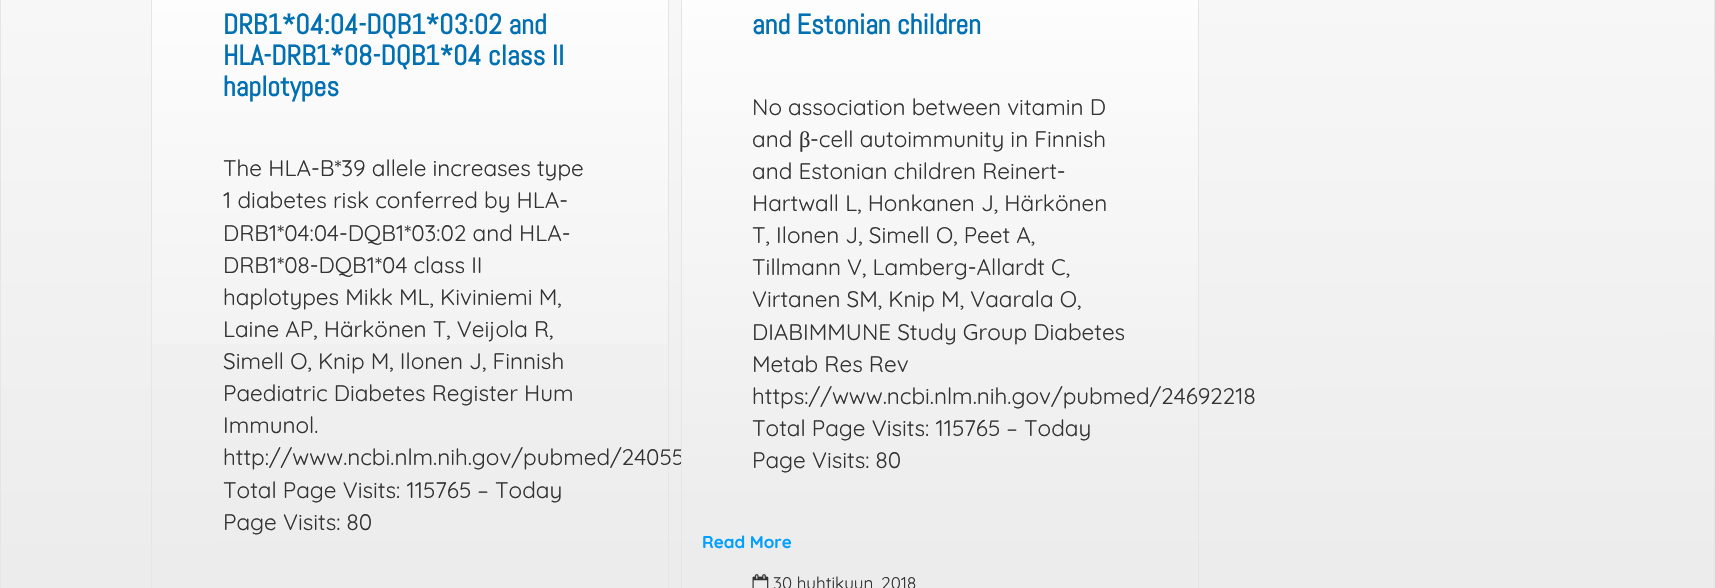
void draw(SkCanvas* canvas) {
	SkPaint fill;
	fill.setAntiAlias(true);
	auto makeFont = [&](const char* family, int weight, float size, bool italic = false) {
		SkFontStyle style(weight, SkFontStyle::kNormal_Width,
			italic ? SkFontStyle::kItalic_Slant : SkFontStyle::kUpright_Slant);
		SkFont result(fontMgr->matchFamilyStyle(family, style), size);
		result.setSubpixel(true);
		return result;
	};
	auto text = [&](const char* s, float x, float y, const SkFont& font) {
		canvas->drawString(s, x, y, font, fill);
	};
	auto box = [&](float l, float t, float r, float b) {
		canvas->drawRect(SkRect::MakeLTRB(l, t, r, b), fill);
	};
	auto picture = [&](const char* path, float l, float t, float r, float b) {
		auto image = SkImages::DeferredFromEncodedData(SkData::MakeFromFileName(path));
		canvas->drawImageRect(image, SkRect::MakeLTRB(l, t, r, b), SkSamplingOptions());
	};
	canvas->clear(0xFFFFFFFF);
	{
		const SkColor colors[] = {0xFFFFFFFF, 0xFFE5E5E5};
		const float stops[] = {0, 1};
		const SkPoint ends[] = {{857, -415}, {858, 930}};
		fill.setShader(SkGradientShader::MakeLinear(ends, colors, stops, 2, SkTileMode::kClamp));
		fill.setAlpha(255);
	}
	box(1, 0, 1714, 588);
	fill.setStyle(SkPaint::kStroke_Style);
	fill.setStrokeWidth(1);
	fill.setShader(nullptr);
	fill.setColor(0xFFE5E5E5);
	canvas->drawRect(SkRect::MakeLTRB(0.5f, -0.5f, 1714.5f, 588.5f), fill);
	fill.setStyle(SkPaint::kFill_Style);
	{
		const SkColor colors[] = {0xFFFFFFFF, 0xFFE5E5E5};
		const float stops[] = {0, 1};
		const SkPoint ends[] = {{410, -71}, {410, 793}};
		fill.setShader(SkGradientShader::MakeLinear(ends, colors, stops, 2, SkTileMode::kClamp));
		fill.setAlpha(255);
	}
	box(152, 0, 668, 344);
	fill.setStyle(SkPaint::kStroke_Style);
	fill.setShader(nullptr);
	fill.setColor(0xFFE5E5E5);
	canvas->drawRect(SkRect::MakeLTRB(151.5f, -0.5f, 668.5f, 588.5f), fill);
	auto font1 = makeFont("Abel", 700, 28);
	fill.setStyle(SkPaint::kFill_Style);
	fill.setColor(0xFF0070B2);
	text("DRB1*04:04-DQB1*03:02 and", 223, 34, font1);
	text("HLA-DRB1*08-DQB1*04 class II", 223, 65, font1);
	text("haplotypes", 223, 96, font1);
	auto font2 = makeFont("Quicksand", 400, 22.5f);
	fill.setColor(0xFF333333);
	text("The HLA-B*39 allele increases type", 223, 176, font2);
	text("1 diabetes risk conferred by HLA-", 223, 208, font2);
	text("DRB1*04:04-DQB1*03:02 and HLA-", 223, 241, font2);
	text("DRB1*08-DQB1*04 class II", 223, 273, font2);
	text("haplotypes Mikk ML, Kiviniemi M,", 223, 305, font2);
	text("Laine AP, Härkönen T, Veijola R,", 223, 337, font2);
	text("Simell O, Knip M, Ilonen J, Finnish", 223, 369, font2);
	text("Paediatric Diabetes Register Hum", 223, 401, font2);
	text("Immunol.", 223, 433, font2);
	text("http://www.ncbi.nlm.nih.gov/pubmed/24055", 223, 465, font2);
	text("Total Page Visits: 115765 – Today", 223, 498, font2);
	text("Page Visits: 80", 223, 530, font2);
	{
		const SkColor colors[] = {0xFFFFFFFF, 0xFFE5E5E5};
		const float stops[] = {0, 1};
		const SkPoint ends[] = {{940, -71}, {940, 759}};
		fill.setShader(SkGradientShader::MakeLinear(ends, colors, stops, 2, SkTileMode::kClamp));
		fill.setAlpha(255);
	}
	box(682, 0, 1198, 462);
	fill.setStyle(SkPaint::kStroke_Style);
	fill.setShader(nullptr);
	fill.setColor(0xFFE5E5E5);
	canvas->drawRect(SkRect::MakeLTRB(681.5f, -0.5f, 1198.5f, 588.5f), fill);
	fill.setStyle(SkPaint::kFill_Style);
	fill.setColor(0xFF0070B2);
	text("and Estonian children", 752, 34, font1);
	fill.setColor(0xFF333333);
	text("No association between vitamin D", 752, 115, font2);
	text("and", 752, 147, font2);
	auto font3 = makeFont("Liberation Serif", 400, 22.5f);
	text("β", 799, 147, font3);
	text("-cell autoimmunity in Finnish", 810, 147, font2);
	text("and Estonian children Reinert-", 752, 179, font2);
	text("Hartwall L, Honkanen J, Härkönen", 752, 211, font2);
	text("T, Ilonen J, Simell O, Peet A,", 752, 243, font2);
	text("Tillmann V, Lamberg-Allardt C,", 752, 275, font2);
	text("Virtanen SM, Knip M, Vaarala O,", 752, 307, font2);
	text("DIABIMMUNE Study Group Diabetes", 752, 340, font2);
	text("Metab Res Rev", 752, 372, font2);
	text("https://www.ncbi.nlm.nih.gov/pubmed/24692218", 752, 404, font2);
	text("Total Page Visits: 115765 – Today", 752, 436, font2);
	text("Page Visits: 80", 752, 468, font2);
	auto font4 = makeFont("Quicksand", 700, 17);
	fill.setColor(0xFF01A0FF);
	text("Read More", 702, 548, font4);
	picture("image0.png", 752, 574, 769, 588);
	auto font5 = makeFont("Quicksand", 400, 17);
	fill.setColor(0xFF333333);
	text("30 huhtikuun, 2018", 773, 589, font5);
}
